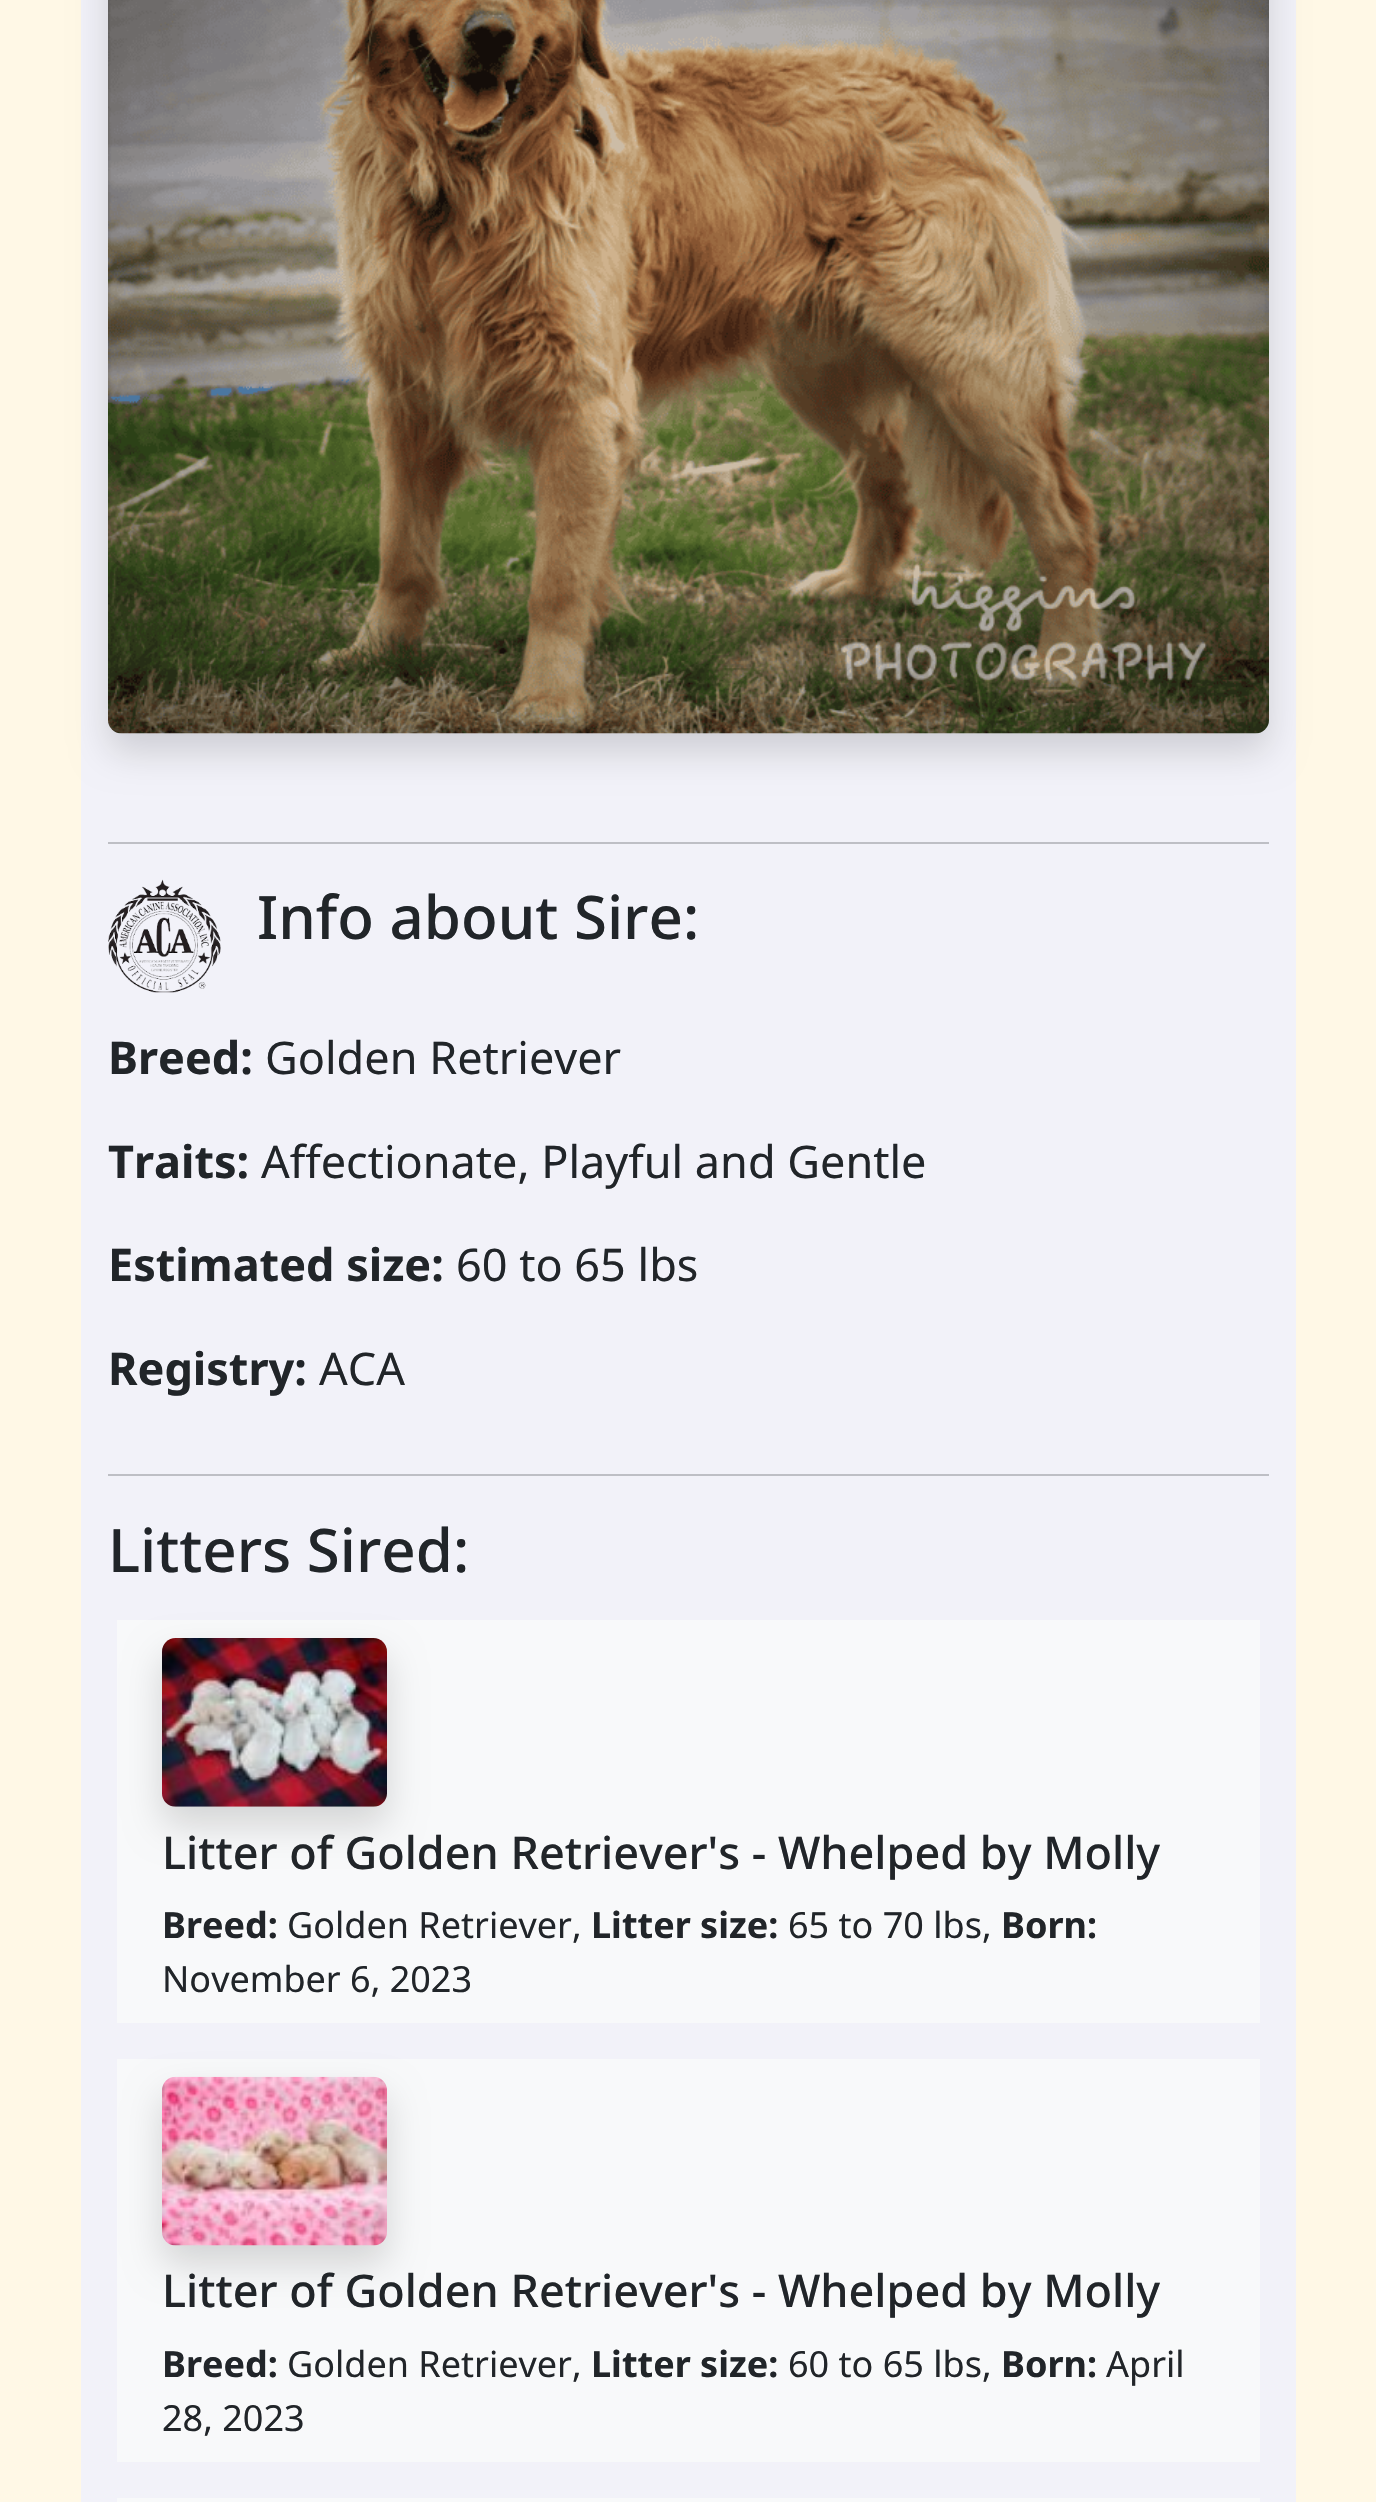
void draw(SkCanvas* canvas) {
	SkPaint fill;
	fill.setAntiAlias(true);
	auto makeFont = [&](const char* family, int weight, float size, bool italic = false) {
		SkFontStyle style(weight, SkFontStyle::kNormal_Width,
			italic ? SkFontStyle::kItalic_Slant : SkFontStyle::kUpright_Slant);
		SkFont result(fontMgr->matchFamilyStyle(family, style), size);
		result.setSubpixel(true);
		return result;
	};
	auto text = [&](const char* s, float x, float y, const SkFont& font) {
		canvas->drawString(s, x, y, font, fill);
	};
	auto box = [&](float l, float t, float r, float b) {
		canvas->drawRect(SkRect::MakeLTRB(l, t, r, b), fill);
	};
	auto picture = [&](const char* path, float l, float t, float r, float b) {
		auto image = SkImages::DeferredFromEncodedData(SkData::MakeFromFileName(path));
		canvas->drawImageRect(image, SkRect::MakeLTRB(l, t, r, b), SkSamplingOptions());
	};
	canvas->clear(0xFFFFF8E6);
	fill.setColor(0xFFF2F2F9);
	box(81, 0, 1296, 2502);
	fill.setColor(0x26000000);
	fill.setMaskFilter(SkMaskFilter::MakeBlur(kNormal_SkBlurStyle, 18));
	canvas->drawRoundRect(SkRect::MakeLTRB(108, -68, 1269, 752), 14, 14, fill);
	fill.setMaskFilter(nullptr);
	picture("image0.png", 108, 0, 1269, 734);
	fill.setColor(0xFFBEBFC5);
	box(108, 842, 1269, 844);
	picture("image1.png", 108, 879, 221, 993);
	box(108, 1474, 1269, 1476);
	fill.setColor(0xFFF8F9FA);
	box(117, 1620, 1260, 2023);
	fill.setColor(0x26000000);
	fill.setMaskFilter(SkMaskFilter::MakeBlur(kNormal_SkBlurStyle, 18));
	canvas->drawRoundRect(SkRect::MakeLTRB(162, 1656, 387, 1825), 14, 14, fill);
	fill.setMaskFilter(nullptr);
	picture("image2.png", 162, 1638, 387, 1807);
	fill.setColor(0xFFF8F9FA);
	box(117, 2059, 1260, 2462);
	fill.setColor(0x26000000);
	fill.setMaskFilter(SkMaskFilter::MakeBlur(kNormal_SkBlurStyle, 18));
	canvas->drawRoundRect(SkRect::MakeLTRB(162, 2095, 387, 2264), 14, 14, fill);
	fill.setMaskFilter(nullptr);
	picture("image3.png", 162, 2076, 387, 2246);
	fill.setColor(0xFFF8F9FA);
	box(117, 2498, 1260, 2502);
	auto font1 = makeFont("Noto Sans", 500, 60);
	fill.setColor(0xFF212529);
	text("Info about Sire:", 257, 939, font1);
	auto font2 = makeFont("Noto Sans", 700, 45);
	text("Breed:", 108, 1074, font2);
	auto font3 = makeFont("Noto Sans", 400, 45);
	text("Golden Retriever", 265, 1074, font3);
	text("Traits:", 108, 1178, font2);
	text("Affectionate, Playful and Gentle", 261, 1178, font3);
	text("Estimated size:", 108, 1281, font2);
	text("60 to 65 lbs", 456, 1281, font3);
	text("Registry:", 108, 1385, font2);
	text("ACA", 319, 1385, font3);
	text("Litters Sired:", 108, 1572, font1);
	auto font4 = makeFont("Noto Sans", 500, 45);
	text("Litter of Golden Retriever's - Whelped by Molly", 162, 1869, font4);
	auto font5 = makeFont("Noto Sans", 700, 36);
	text("Breed:", 162, 1938, font5);
	auto font6 = makeFont("Noto Sans", 400, 36);
	text("Golden Retriever,", 287, 1938, font6);
	text("Litter size:", 591, 1938, font5);
	text("65 to 70 lbs,", 788, 1938, font6);
	text("Born:", 1001, 1938, font5);
	text("November 6, 2023", 162, 1992, font6);
	text("Litter of Golden Retriever's - Whelped by Molly", 162, 2307, font4);
	text("Breed:", 162, 2377, font5);
	text("Golden Retriever,", 287, 2377, font6);
	text("Litter size:", 591, 2377, font5);
	text("60 to 65 lbs,", 788, 2377, font6);
	text("Born:", 1001, 2377, font5);
	text("April", 1106, 2377, font6);
	text("28, 2023", 162, 2431, font6);
}
